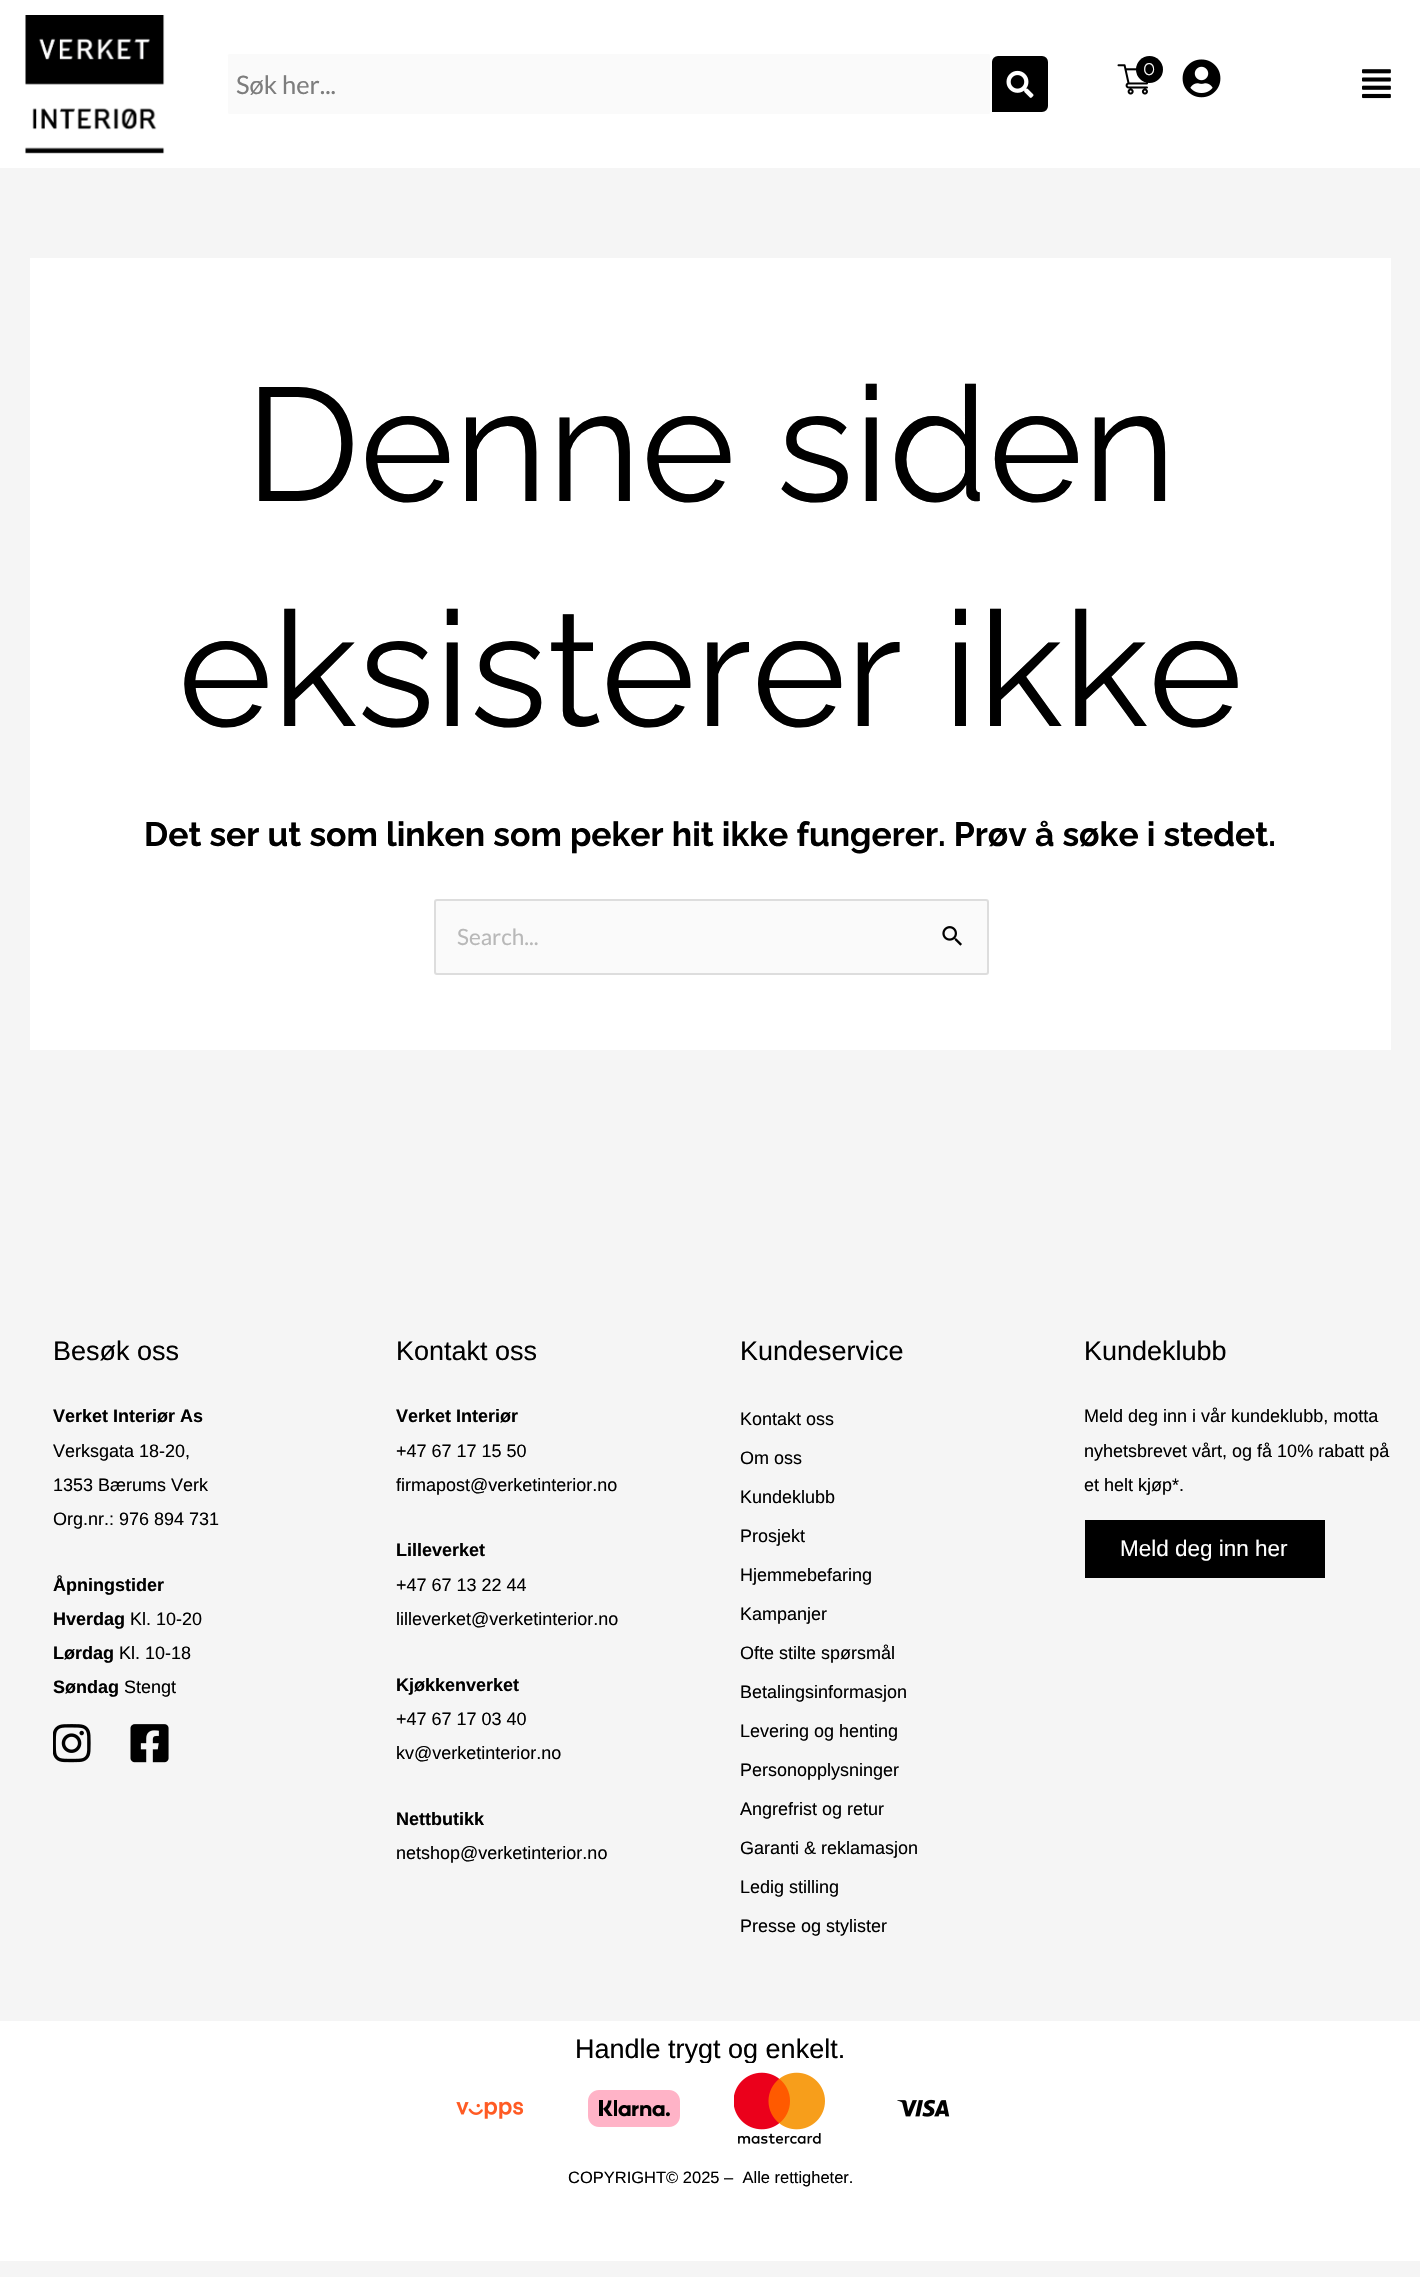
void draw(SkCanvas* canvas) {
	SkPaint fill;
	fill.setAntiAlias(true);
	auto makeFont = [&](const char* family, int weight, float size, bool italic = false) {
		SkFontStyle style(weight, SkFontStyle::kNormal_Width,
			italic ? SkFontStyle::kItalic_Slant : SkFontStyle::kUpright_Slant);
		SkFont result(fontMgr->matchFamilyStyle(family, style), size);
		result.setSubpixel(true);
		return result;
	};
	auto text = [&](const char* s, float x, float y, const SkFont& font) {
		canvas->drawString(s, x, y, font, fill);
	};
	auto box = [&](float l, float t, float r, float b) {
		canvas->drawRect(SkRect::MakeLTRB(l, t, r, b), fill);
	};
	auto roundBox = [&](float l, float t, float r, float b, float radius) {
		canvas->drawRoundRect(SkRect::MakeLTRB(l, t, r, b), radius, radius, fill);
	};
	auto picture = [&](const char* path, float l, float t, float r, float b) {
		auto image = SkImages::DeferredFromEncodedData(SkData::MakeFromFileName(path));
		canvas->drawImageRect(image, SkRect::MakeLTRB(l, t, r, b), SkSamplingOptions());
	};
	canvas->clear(0xFFF5F5F5);
	fill.setColor(0xFFFFFFFF);
	box(0, 0, 1420, 168);
	picture("image0.png", 25, 15, 165, 154);
	fill.setColor(0xFFFAFAFA);
	roundBox(228, 54, 990, 114, 1.5f);
	fill.setColor(0xFF000000);
	canvas->drawPath(SkPathBuilder().moveTo(998, 55).lineTo(1042, 55).cubicTo(1046, 55, 1049, 58, 1049, 62).lineTo(1049, 106).cubicTo(1049, 110, 1046, 113, 1042, 113).lineTo(991, 113).lineTo(991, 62).cubicTo(991, 58, 994, 55, 998, 55).close().detach(), fill);
	fill.setStyle(SkPaint::kStroke_Style);
	fill.setStrokeWidth(2);
	fill.setColor(0xFFFFFFFF);
	canvas->drawPath(SkPathBuilder().moveTo(998, 55).lineTo(1042, 55).cubicTo(1046, 55, 1049, 58, 1049, 62).lineTo(1049, 106).cubicTo(1049, 110, 1046, 113, 1042, 113).lineTo(991, 113).lineTo(991, 62).cubicTo(991, 58, 994, 55, 998, 55).close().detach(), fill);
	picture("image1.png", 1006, 70, 1034, 98);
	picture("image2.png", 1117, 64, 1149, 95);
	fill.setStyle(SkPaint::kFill_Style);
	fill.setColor(0xFF000000);
	canvas->drawCircle(1149.5f, 69.5f, 13.5f, fill);
	picture("image3.png", 1182, 59, 1221, 98);
	picture("image4.png", 1362, 69, 1391, 99);
	fill.setColor(0xFFFFFFFF);
	box(30, 258, 1391, 1050);
	fill.setColor(0xFFFAFAFA);
	canvas->drawRoundRect(SkRect::MakeLTRB(435, 900, 988, 974), 2, 2, fill);
	fill.setStyle(SkPaint::kStroke_Style);
	fill.setColor(0xFFDDDDDD);
	canvas->drawRoundRect(SkRect::MakeLTRB(435, 900, 988, 974), 2, 2, fill);
	picture("image5.png", 942, 926, 962, 946);
	picture("image6.png", 53, 1724, 91, 1763);
	picture("image7.png", 130, 1724, 169, 1763);
	fill.setStyle(SkPaint::kFill_Style);
	fill.setColor(0xFF000000);
	box(1085, 1520, 1325, 1578);
	fill.setColor(0xFFFFFFFF);
	box(0, 2021, 1420, 2063);
	auto font1 = makeFont("Lato", 400, 25.5f);
	fill.setColor(0xFF7D7D7D);
	text("Søk her...", 236, 94, font1);
	auto font2 = makeFont("Raleway", 300, 20);
	fill.setColor(0xFFFFFFFF);
	text("0", 1143, 75, font2);
	auto font3 = makeFont("Raleway", 400, 160.5f);
	fill.setColor(0xFF000000);
	text("Denne siden", 245, 501, font3);
	text("eksisterer ikke", 178, 726, font3);
	auto font4 = makeFont("Raleway", 700, 33.75f);
	text("Det ser ut som linken som peker hit ikke fungerer. Prøv å søke i stedet.", 144, 846, font4);
	auto font5 = makeFont("Lato", 400, 22.5f);
	fill.setColor(0xFFB8B8B8);
	text("Search...", 457, 945, font5);
	auto font6 = makeFont("Liberation Sans", 400, 27);
	fill.setColor(0xFF000000);
	text("Besøk oss", 53, 1360, font6);
	auto font7 = makeFont("Liberation Sans", 700, 18);
	text("Verket Interiør As", 53, 1422, font7);
	auto font8 = makeFont("Liberation Sans", 400, 18);
	text("Verksgata 18-20,", 53, 1457, font8);
	text("1353 Bærums Verk", 53, 1491, font8);
	text("Org.nr.: 976 894 731", 53, 1525, font8);
	text("Åpningstider", 53, 1591, font7);
	text("Hverdag", 53, 1625, font7);
	text("Kl. 10-20", 130, 1625, font8);
	text("Lørdag", 53, 1659, font7);
	text("Kl. 10-18", 119, 1659, font8);
	text("Søndag", 53, 1693, font7);
	text("Stengt", 124, 1693, font8);
	text("Kontakt oss", 396, 1360, font6);
	text("Verket Interiør", 396, 1422, font7);
	text("+47 67 17 15 50", 396, 1457, font8);
	text("firmapost@verketinterior.no", 396, 1491, font8);
	text("Lilleverket", 396, 1556, font7);
	text("+47 67 13 22 44", 396, 1591, font8);
	text("lilleverket@verketinterior.no", 396, 1625, font8);
	text("Kjøkkenverket", 396, 1691, font7);
	text("+47 67 17 03 40", 396, 1725, font8);
	text("kv@verketinterior.no", 396, 1759, font8);
	text("Nettbutikk", 396, 1825, font7);
	text("netshop@verketinterior.no", 396, 1859, font8);
	text("Kundeservice", 740, 1360, font6);
	text("Kontakt oss", 740, 1425, font8);
	text("Om oss", 740, 1464, font8);
	text("Kundeklubb", 740, 1503, font8);
	text("Prosjekt", 740, 1542, font8);
	text("Hjemmebefaring", 740, 1581, font8);
	text("Kampanjer", 740, 1620, font8);
	text("Ofte stilte spørsmål", 740, 1659, font8);
	text("Betalingsinformasjon", 740, 1698, font8);
	text("Levering og henting", 740, 1737, font8);
	text("Personopplysninger", 740, 1776, font8);
	text("Angrefrist og retur", 740, 1815, font8);
	text("Garanti & reklamasjon", 740, 1854, font8);
	text("Ledig stilling", 740, 1893, font8);
	text("Presse og stylister", 740, 1932, font8);
	text("Kundeklubb", 1084, 1360, font6);
	text("Meld deg inn i vår kundeklubb, motta", 1084, 1422, font8);
	text("nyhetsbrevet vårt, og få 10% rabatt på", 1084, 1457, font8);
	text("et helt kjøp*.", 1084, 1491, font8);
	auto font9 = makeFont("Liberation Sans", 400, 22.5f);
	fill.setColor(0xFFFFFFFF);
	text("Meld deg inn her", 1120, 1556, font9);
	fill.setColor(0xFF000000);
	text("Handle trygt og enkelt.", 575, 2058, font6);
	fill.setColor(0xFFFFFFFF);
	box(0, 2063, 1420, 2261);
	picture("image8.png", 456, 2101, 524, 2119);
	picture("image9.png", 588, 2090, 680, 2127);
	picture("image10.png", 734, 2072, 825, 2144);
	picture("image11.png", 897, 2099, 950, 2117);
	auto font10 = makeFont("Liberation Sans", 400, 16.5f);
	fill.setColor(0xFF000000);
	text("COPYRIGHT© 2025 –  Alle rettigheter.", 568, 2183, font10);
}
